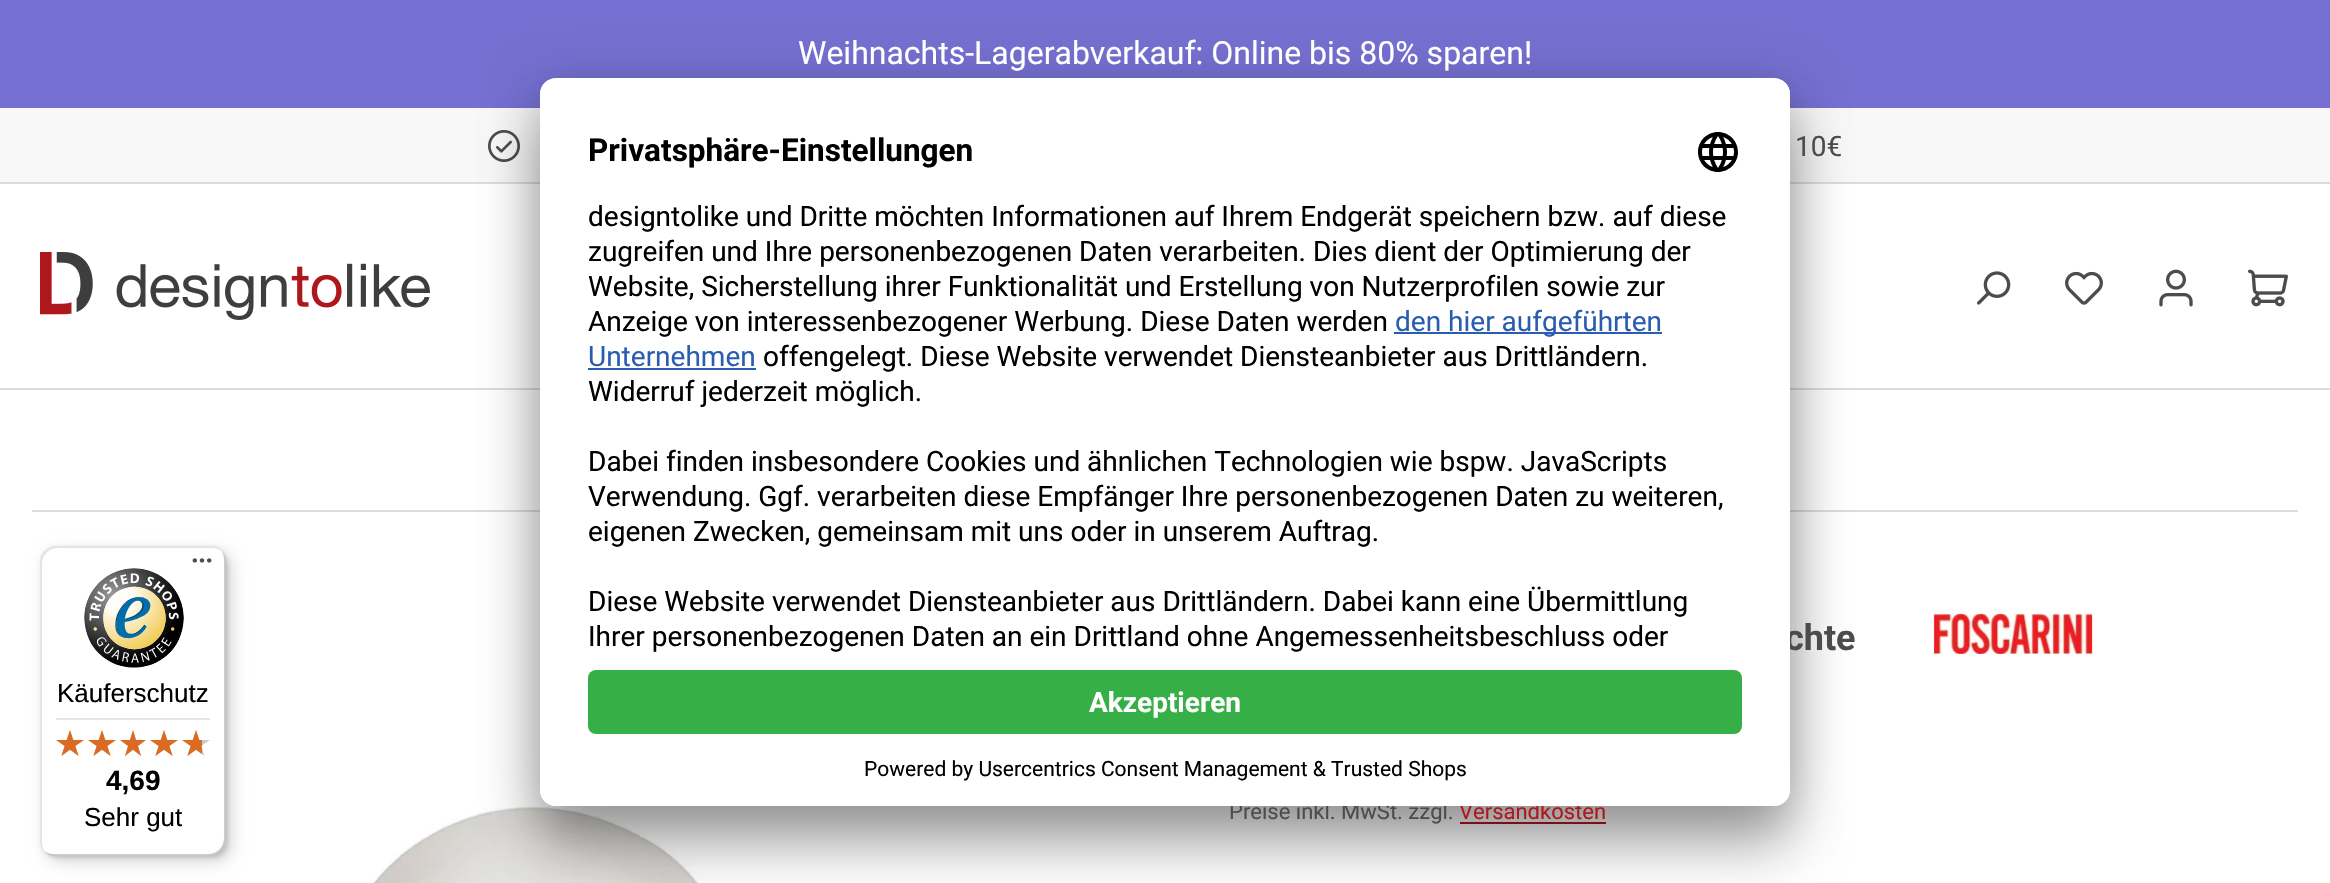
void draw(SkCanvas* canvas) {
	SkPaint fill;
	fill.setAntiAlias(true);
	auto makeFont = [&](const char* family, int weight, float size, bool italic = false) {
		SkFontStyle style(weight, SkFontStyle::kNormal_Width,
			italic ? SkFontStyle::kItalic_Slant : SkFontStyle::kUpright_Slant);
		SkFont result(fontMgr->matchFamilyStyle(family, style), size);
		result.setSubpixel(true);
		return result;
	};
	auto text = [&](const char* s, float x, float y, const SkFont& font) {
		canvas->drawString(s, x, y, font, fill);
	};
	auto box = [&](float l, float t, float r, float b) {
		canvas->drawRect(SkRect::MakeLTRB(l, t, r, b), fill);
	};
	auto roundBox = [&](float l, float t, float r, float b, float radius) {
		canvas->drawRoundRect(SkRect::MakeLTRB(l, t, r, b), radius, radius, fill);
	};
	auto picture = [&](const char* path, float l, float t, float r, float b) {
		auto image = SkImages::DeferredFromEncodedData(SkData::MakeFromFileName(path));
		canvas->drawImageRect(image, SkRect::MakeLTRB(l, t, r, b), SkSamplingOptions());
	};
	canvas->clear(0xFFFFFFFF);
	fill.setColor(0xFF7570D1);
	box(0, 0, 2330, 108);
	fill.setColor(0xFFF8F8F8);
	box(0, 108, 2330, 182);
	fill.setColor(0xFFDDDBE0);
	box(0, 182, 2330, 184);
	picture("image1.png", 488, 130, 520, 162);
	box(0, 388, 2330, 390);
	box(32, 510, 2298, 512);
	fill.setColor(0xFFAE181D);
	box(1460, 822, 1606, 824);
	picture("image15.png", 372, 806, 699, 883);
	fill.setColor(0x4D000000);
	fill.setMaskFilter(SkMaskFilter::MakeBlur(kNormal_SkBlurStyle, 28));
	canvas->drawRoundRect(SkRect::MakeLTRB(540, 118, 1790, 846), 16, 16, fill);
	fill.setMaskFilter(nullptr);
	fill.setColor(0x38000000);
	fill.setMaskFilter(SkMaskFilter::MakeBlur(kNormal_SkBlurStyle, 26));
	canvas->drawRoundRect(SkRect::MakeLTRB(540, 88, 1790, 816), 16, 16, fill);
	fill.setMaskFilter(nullptr);
	picture("image2.png", 40, 252, 430, 320);
	picture("image3.png", 1977, 271, 2011, 305);
	picture("image4.png", 2065, 271, 2103, 305);
	picture("image5.png", 2159, 269, 2193, 307);
	picture("image6.png", 2248, 269, 2288, 307);
	fill.setColor(0x26000000);
	fill.setMaskFilter(SkMaskFilter::MakeBlur(kNormal_SkBlurStyle, 8));
	canvas->drawRoundRect(SkRect::MakeLTRB(46, 552, 232, 862), 16, 16, fill);
	fill.setMaskFilter(nullptr);
	fill.setMaskFilter(SkMaskFilter::MakeBlur(kNormal_SkBlurStyle, 2));
	canvas->drawRoundRect(SkRect::MakeLTRB(42, 548, 228, 858), 16, 16, fill);
	fill.setMaskFilter(nullptr);
	fill.setColor(0xFFFFFFFF);
	roundBox(40, 546, 226, 856, 16);
	fill.setColor(0x1A000000);
	canvas->drawPath(SkPathBuilder().moveTo(58, 548).lineTo(212, 548).cubicTo(216, 548, 219, 549, 222, 551).cubicTo(219, 548, 215, 546, 210, 546).lineTo(56, 546).cubicTo(47, 546, 40, 553, 40, 562).lineTo(40, 840).cubicTo(40, 845, 42, 849, 45, 852).cubicTo(43, 849, 42, 846, 42, 842).lineTo(42, 564).cubicTo(42, 555, 49, 548, 58, 548).close().detach(), fill);
	fill.setColor(0x33000000);
	canvas->drawPath(SkPathBuilder().moveTo(44, 851).cubicTo(47, 854, 51, 856, 56, 856).lineTo(210, 856).cubicTo(219, 856, 226, 849, 226, 840).lineTo(226, 562).cubicTo(226, 557, 224, 553, 221, 550).cubicTo(223, 553, 224, 556, 224, 560).lineTo(224, 838).cubicTo(224, 847, 217, 854, 208, 854).lineTo(54, 854).cubicTo(50, 854, 47, 853, 44, 851).close().detach(), fill);
	fill.setColor(0x33323232);
	canvas->drawPath(SkPathBuilder().moveTo(45, 851).cubicTo(48, 854, 52, 856, 56, 856).lineTo(210, 856).cubicTo(219, 856, 226, 849, 226, 840).lineTo(226, 562).cubicTo(226, 558, 224, 554, 221, 551).cubicTo(224, 554, 225, 557, 225, 561).lineTo(225, 839).cubicTo(225, 848, 218, 855, 209, 855).lineTo(55, 855).cubicTo(51, 855, 48, 854, 45, 851).close().detach(), fill);
	fill.setColor(0x4DFFFFFF);
	canvas->drawPath(SkPathBuilder().moveTo(45, 851).cubicTo(48, 854, 52, 856, 56, 856).lineTo(210, 856).cubicTo(219, 856, 226, 849, 226, 840).lineTo(226, 562).cubicTo(226, 558, 224, 554, 221, 551).cubicTo(224, 554, 225, 557, 225, 561).lineTo(225, 839).cubicTo(225, 848, 218, 855, 209, 855).lineTo(55, 855).cubicTo(51, 855, 48, 854, 45, 851).close().detach(), fill);
	picture("image7.png", 192, 558, 212, 563);
	picture("image8.png", 84, 568, 184, 668);
	fill.setColor(0xFFE5E5E5);
	box(56, 718, 210, 720);
	picture("image9.png", 56, 730, 84, 756);
	picture("image9.png", 88, 730, 116, 756);
	picture("image10.png", 120, 730, 146, 756);
	picture("image9.png", 150, 730, 178, 756);
	picture("image9.png", 182, 730, 210, 756);
	picture("image11.png", 56, 730, 84, 756);
	picture("image11.png", 88, 730, 116, 756);
	picture("image12.png", 120, 730, 146, 756);
	picture("image11.png", 150, 730, 178, 756);
	picture("image13.png", 182, 730, 202, 756);
	picture("image14.png", 1933, 613, 2093, 654);
	auto font1 = makeFont("Roboto", 400, 32);
	fill.setColor(0xFFFFFFFF);
	text("Weihnachts-Lagerabverkauf: Online bis 80% sparen!", 798, 64, font1);
	auto font2 = makeFont("Roboto", 400, 28);
	fill.setColor(0xFF4C4C4C);
	text("10€", 1795, 156, font2);
	auto font3 = makeFont("Liberation Sans", 400, 26);
	fill.setColor(0xFF000000);
	text("Käuferschutz", 57, 702, font3);
	auto font4 = makeFont("Liberation Sans", 700, 28);
	text("4,69", 106, 790, font4);
	text("Sehr gut", 84, 826, font3);
	auto font5 = makeFont("Roboto", 700, 36);
	fill.setColor(0xFF4C4C4C);
	text("chte", 1785, 650, font5);
	auto font6 = makeFont("Roboto", 400, 22);
	text("Preise inkl. MwSt. zzgl.", 1229, 819, font6);
	fill.setColor(0xFFAE181D);
	text("Versandkosten", 1459, 819, font6);
	fill.setColor(0xFFFFFFFF);
	roundBox(540, 78, 1790, 806, 16);
	canvas->save();
	canvas->clipPath(SkPathBuilder().moveTo(556, 78).lineTo(1774, 78).cubicTo(1783, 78, 1790, 85, 1790, 94).lineTo(1790, 790).cubicTo(1790, 799, 1783, 806, 1774, 806).lineTo(556, 806).cubicTo(547, 806, 540, 799, 540, 790).lineTo(540, 94).cubicTo(540, 85, 547, 78, 556, 78).close().detach(), true);
	canvas->clipPath(SkPathBuilder().moveTo(556, 78).lineTo(1774, 78).cubicTo(1783, 78, 1790, 85, 1790, 94).lineTo(1790, 654).lineTo(540, 654).lineTo(540, 94).cubicTo(540, 85, 547, 78, 556, 78).close().detach(), true);
	box(540, 80, 1790, 654);
	canvas->restore();
	picture("image0.png", 1698, 132, 1738, 172);
	auto font7 = makeFont("Roboto", 700, 31.5f);
	fill.setColor(0xFF000000);
	text("Privatsphäre-Einstellungen", 588, 161, font7);
	text("Ihrer personenbezogenen Daten an ein Drittland ohne Angemessenheitsbeschluss oder", 588, 646, font2);
	text("Diese Website verwendet Diensteanbieter aus Drittländern. Dabei kann eine Übermittlung", 588, 611, font2);
	text("eigenen Zwecken, gemeinsam mit uns oder in unserem Auftrag.", 588, 541, font2);
	text("Verwendung. Ggf. verarbeiten diese Empfänger Ihre personenbezogenen Daten zu weiteren,", 588, 506, font2);
	text("Dabei finden insbesondere Cookies und ähnlichen Technologien wie bspw. JavaScripts", 588, 471, font2);
	text("Widerruf jederzeit möglich.", 588, 401, font2);
	text("offengelegt. Diese Website verwendet Diensteanbieter aus Drittländern.", 763, 366, font2);
	fill.setColor(0xFF2A5DB0);
	text("Unternehmen", 588, 366, font2);
	box(588, 368, 756, 370);
	box(1394, 332, 1662, 334);
	text("den hier aufgeführten", 1395, 331, font2);
	fill.setColor(0xFF000000);
	text("Anzeige von interessenbezogener Werbung. Diese Daten werden", 588, 331, font2);
	text("Website, Sicherstellung ihrer Funktionalität und Erstellung von Nutzerprofilen sowie zur", 588, 296, font2);
	text("zugreifen und Ihre personenbezogenen Daten verarbeiten. Dies dient der Optimierung der", 588, 261, font2);
	text("designtolike und Dritte möchten Informationen auf Ihrem Endgerät speichern bzw. auf diese", 588, 226, font2);
	fill.setColor(0xFFFFFFFF);
	canvas->drawPath(SkPathBuilder().moveTo(540, 654).lineTo(1790, 654).lineTo(1790, 790).cubicTo(1790, 799, 1783, 806, 1774, 806).lineTo(556, 806).cubicTo(547, 806, 540, 799, 540, 790).close().detach(), fill);
	auto font8 = makeFont("Roboto", 400, 21);
	fill.setColor(0xFF000000);
	text("Powered by Usercentrics Consent Management & Trusted Shops", 864, 776, font8);
	fill.setColor(0xFF36AF47);
	roundBox(588, 670, 1742, 734, 8);
	auto font9 = makeFont("Roboto", 700, 28);
	fill.setColor(0xFFFFFFFF);
	text("Akzeptieren", 1089, 712, font9);
}
